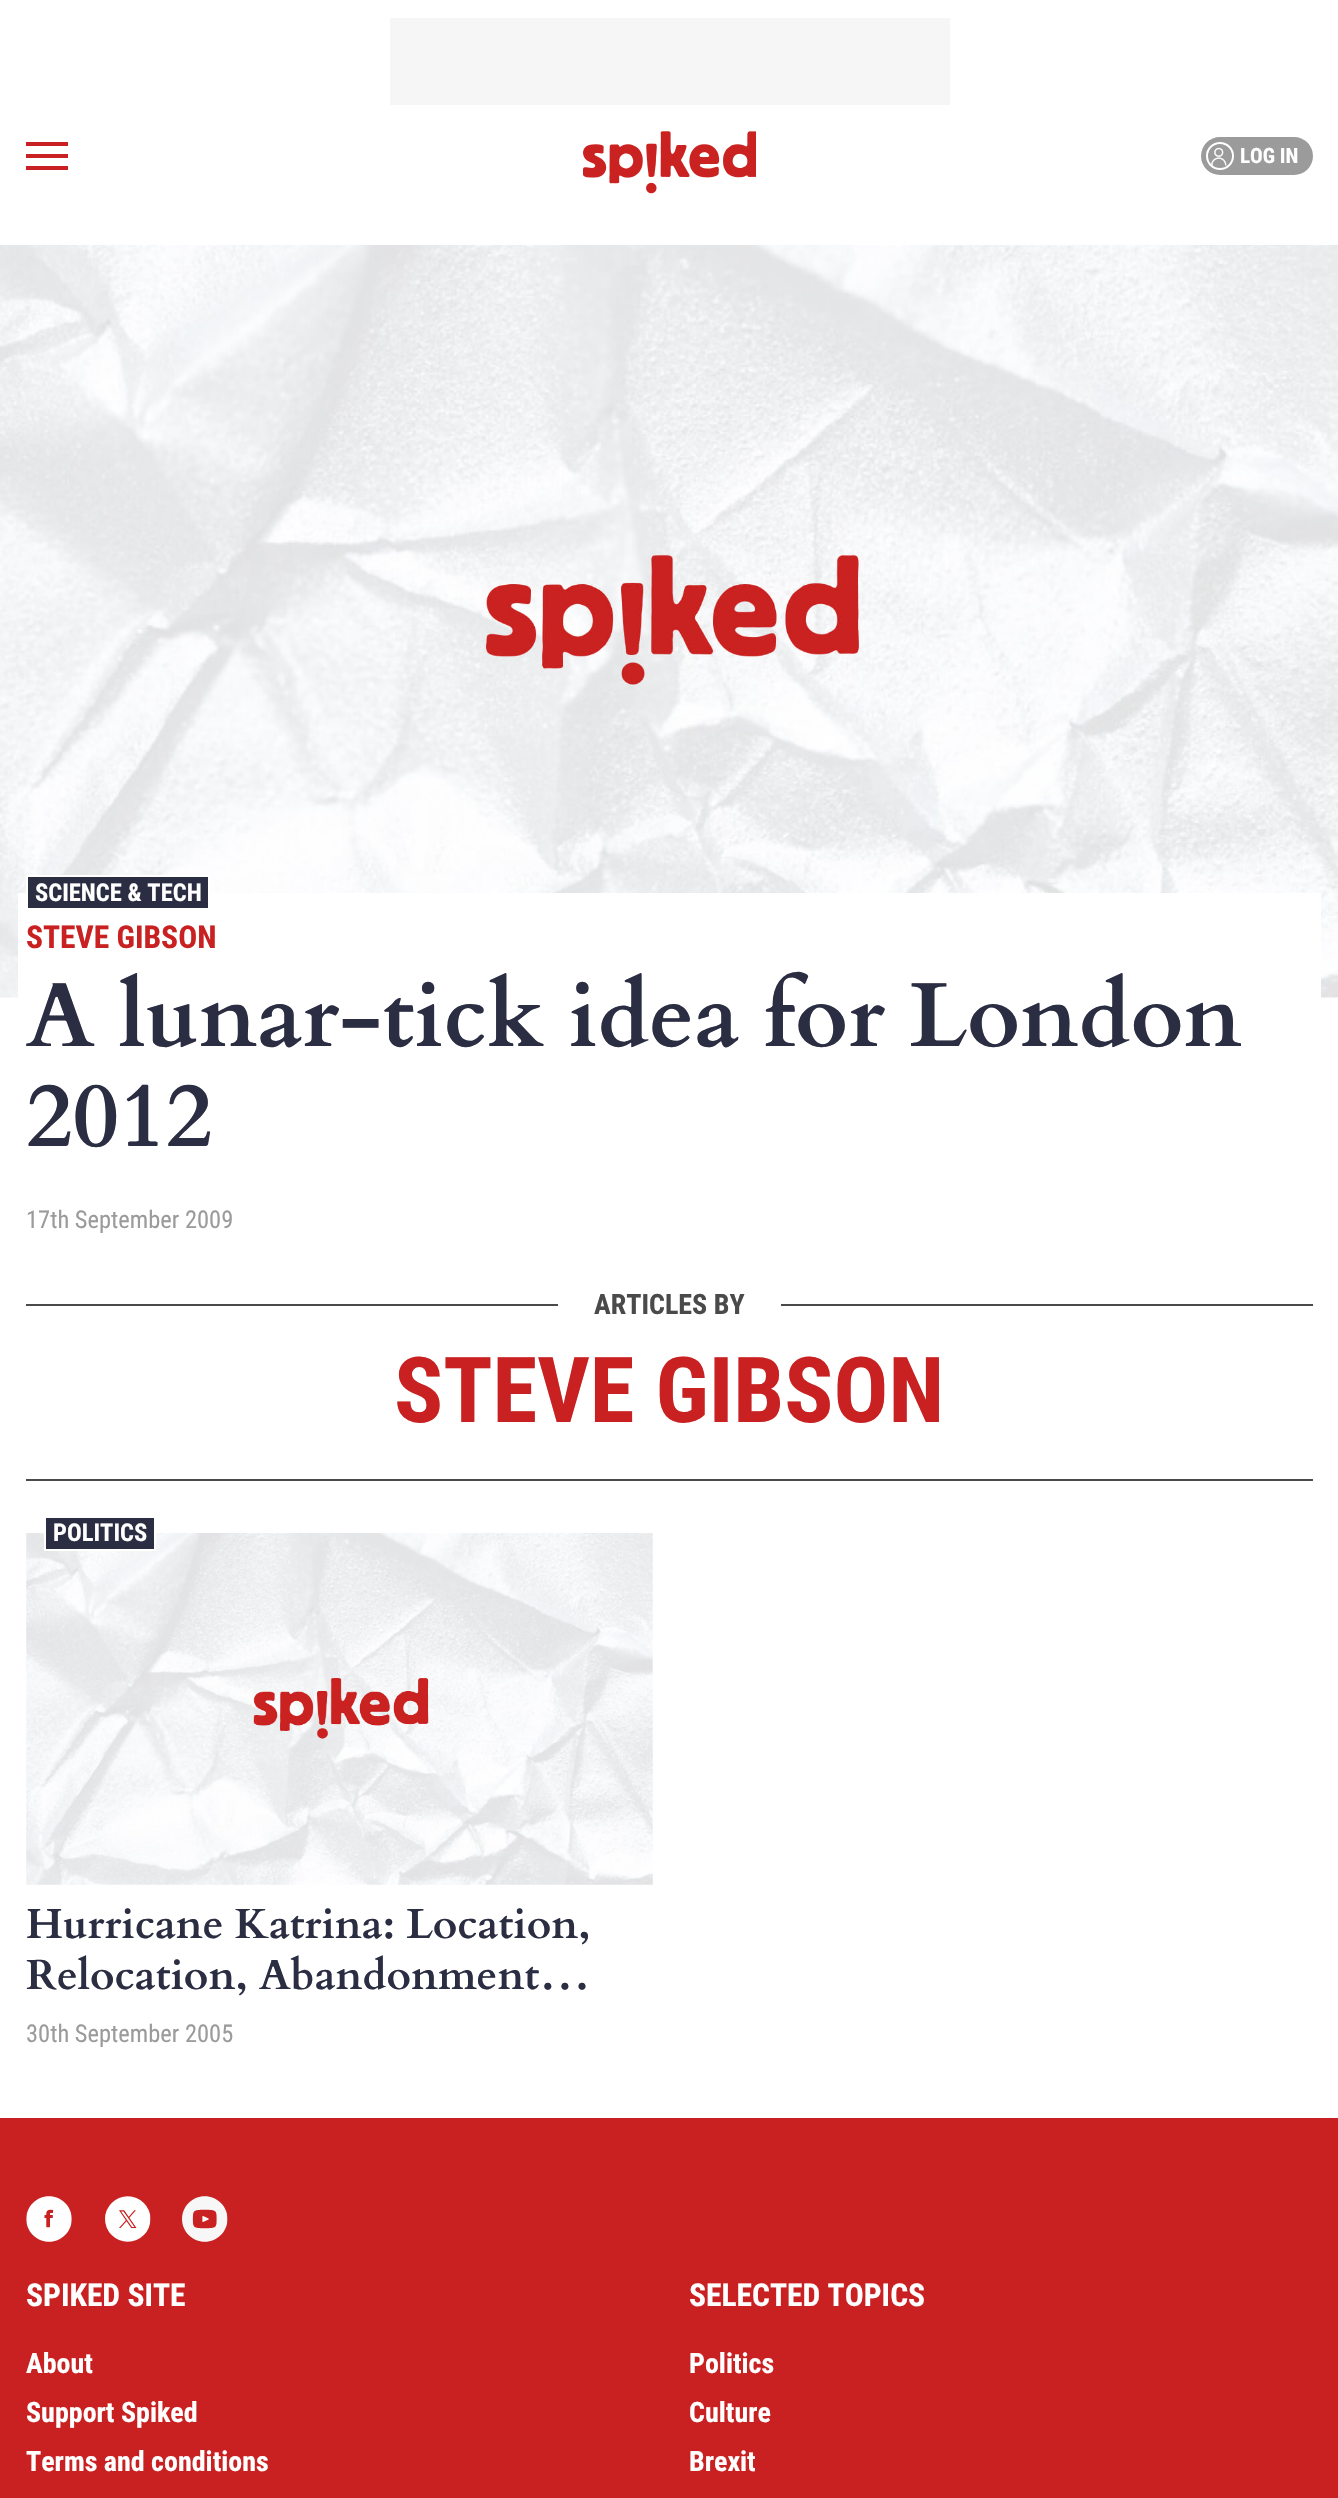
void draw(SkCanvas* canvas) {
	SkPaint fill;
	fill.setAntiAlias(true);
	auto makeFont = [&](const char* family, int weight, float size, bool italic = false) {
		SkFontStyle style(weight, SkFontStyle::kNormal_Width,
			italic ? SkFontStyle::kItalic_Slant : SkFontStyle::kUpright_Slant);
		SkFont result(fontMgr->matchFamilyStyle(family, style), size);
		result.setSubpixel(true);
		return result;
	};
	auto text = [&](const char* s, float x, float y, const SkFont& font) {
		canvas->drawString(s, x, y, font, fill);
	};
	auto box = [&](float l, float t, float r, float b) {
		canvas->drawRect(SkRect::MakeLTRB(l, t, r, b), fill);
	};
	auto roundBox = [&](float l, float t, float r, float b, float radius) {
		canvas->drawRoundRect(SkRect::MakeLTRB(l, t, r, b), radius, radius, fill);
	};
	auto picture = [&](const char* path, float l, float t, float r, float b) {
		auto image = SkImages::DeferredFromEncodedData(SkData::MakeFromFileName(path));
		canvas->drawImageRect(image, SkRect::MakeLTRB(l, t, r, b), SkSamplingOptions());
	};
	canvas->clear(0xFFFFFFFF);
	fill.setColor(0xFFF6F6F6);
	box(390, 18, 950, 105);
	fill.setColor(0xFFC92121);
	box(26, 142, 68, 146);
	box(26, 154, 68, 158);
	box(26, 166, 68, 170);
	picture("image0.png", 583, 131, 756, 194);
	fill.setColor(0xFF9B9B9B);
	roundBox(1201, 137, 1313, 175, 19);
	picture("image1.png", 1211, 147, 1227, 166);
	fill.setStyle(SkPaint::kStroke_Style);
	fill.setStrokeWidth(2);
	fill.setColor(0xFFFFFFFF);
	canvas->drawCircle(1220, 156, 13, fill);
	picture("image2.png", 0, 245, 1338, 998);
	fill.setStyle(SkPaint::kFill_Style);
	box(18, 893, 1321, 998);
	fill.setColor(0xFF2B2E42);
	canvas->drawRect(SkRect::MakeLTRB(27, 876, 209, 909), fill);
	fill.setStyle(SkPaint::kStroke_Style);
	fill.setColor(0xFFFFFFFF);
	canvas->drawRect(SkRect::MakeLTRB(27, 876, 209, 909), fill);
	fill.setStyle(SkPaint::kFill_Style);
	fill.setColor(0xFF4A4A4A);
	box(26, 1304, 1313, 1306);
	box(26, 1479, 1313, 1481);
	fill.setColor(0xFFFFFFFF);
	box(558, 1304, 781, 1306);
	picture("image3.png", 26, 1533, 653, 1885);
	fill.setColor(0xFF2B2E42);
	canvas->drawRect(SkRect::MakeLTRB(45, 1517, 155, 1550), fill);
	fill.setStyle(SkPaint::kStroke_Style);
	fill.setColor(0xFFFFFFFF);
	canvas->drawRect(SkRect::MakeLTRB(45, 1517, 155, 1550), fill);
	fill.setStyle(SkPaint::kFill_Style);
	fill.setColor(0xFFC92121);
	box(0, 2118, 1338, 2498);
	picture("image4.png", 26, 2196, 72, 2242);
	picture("image5.png", 105, 2196, 151, 2242);
	picture("image6.png", 182, 2196, 228, 2242);
	auto font1 = makeFont("Roboto Condensed", 700, 21);
	fill.setColor(0xFFFFFFFF);
	text("LOG IN", 1240, 163, font1);
	auto font2 = makeFont("Roboto Condensed", 700, 24.5f);
	text("SCIENCE & TECH", 35, 901, font2);
	auto font3 = makeFont("Roboto Condensed", 700, 31.5f);
	fill.setColor(0xFFC92121);
	text("STEVE GIBSON", 26, 948, font3);
	auto font4 = makeFont("Cardo", 700, 91);
	fill.setColor(0xFF2B2E42);
	text("A lunar-tick idea for London", 26, 1046, font4);
	text("2012", 26, 1146, font4);
	auto font5 = makeFont("Roboto Condensed", 400, 24.5f);
	fill.setColor(0xFF9B9B9B);
	text("17th September 2009", 26, 1228, font5);
	auto font6 = makeFont("Roboto Condensed", 700, 28);
	fill.setColor(0xFF4A4A4A);
	text("ARTICLES BY", 594, 1314, font6);
	auto font7 = makeFont("Roboto Condensed", 700, 91);
	fill.setColor(0xFFC92121);
	text("STEVE GIBSON", 394, 1422, font7);
	fill.setColor(0xFFFFFFFF);
	text("POLITICS", 53, 1541, font2);
	auto font8 = makeFont("Cardo", 700, 42);
	fill.setColor(0xFF2B2E42);
	text("Hurricane Katrina: Location,", 26, 1938, font8);
	text("Relocation, Abandonment…", 26, 1989, font8);
	fill.setColor(0xFF9B9B9B);
	text("30th September 2005", 26, 2042, font5);
	fill.setColor(0xFFFFFFFF);
	text("SPIKED SITE", 26, 2306, font3);
	text("About", 26, 2373, font6);
	text("Support Spiked", 26, 2422, font6);
	text("Terms and conditions", 26, 2471, font6);
	text("SELECTED TOPICS", 689, 2306, font3);
	text("Politics", 689, 2373, font6);
	text("Culture", 689, 2422, font6);
	text("Brexit", 689, 2471, font6);
}
